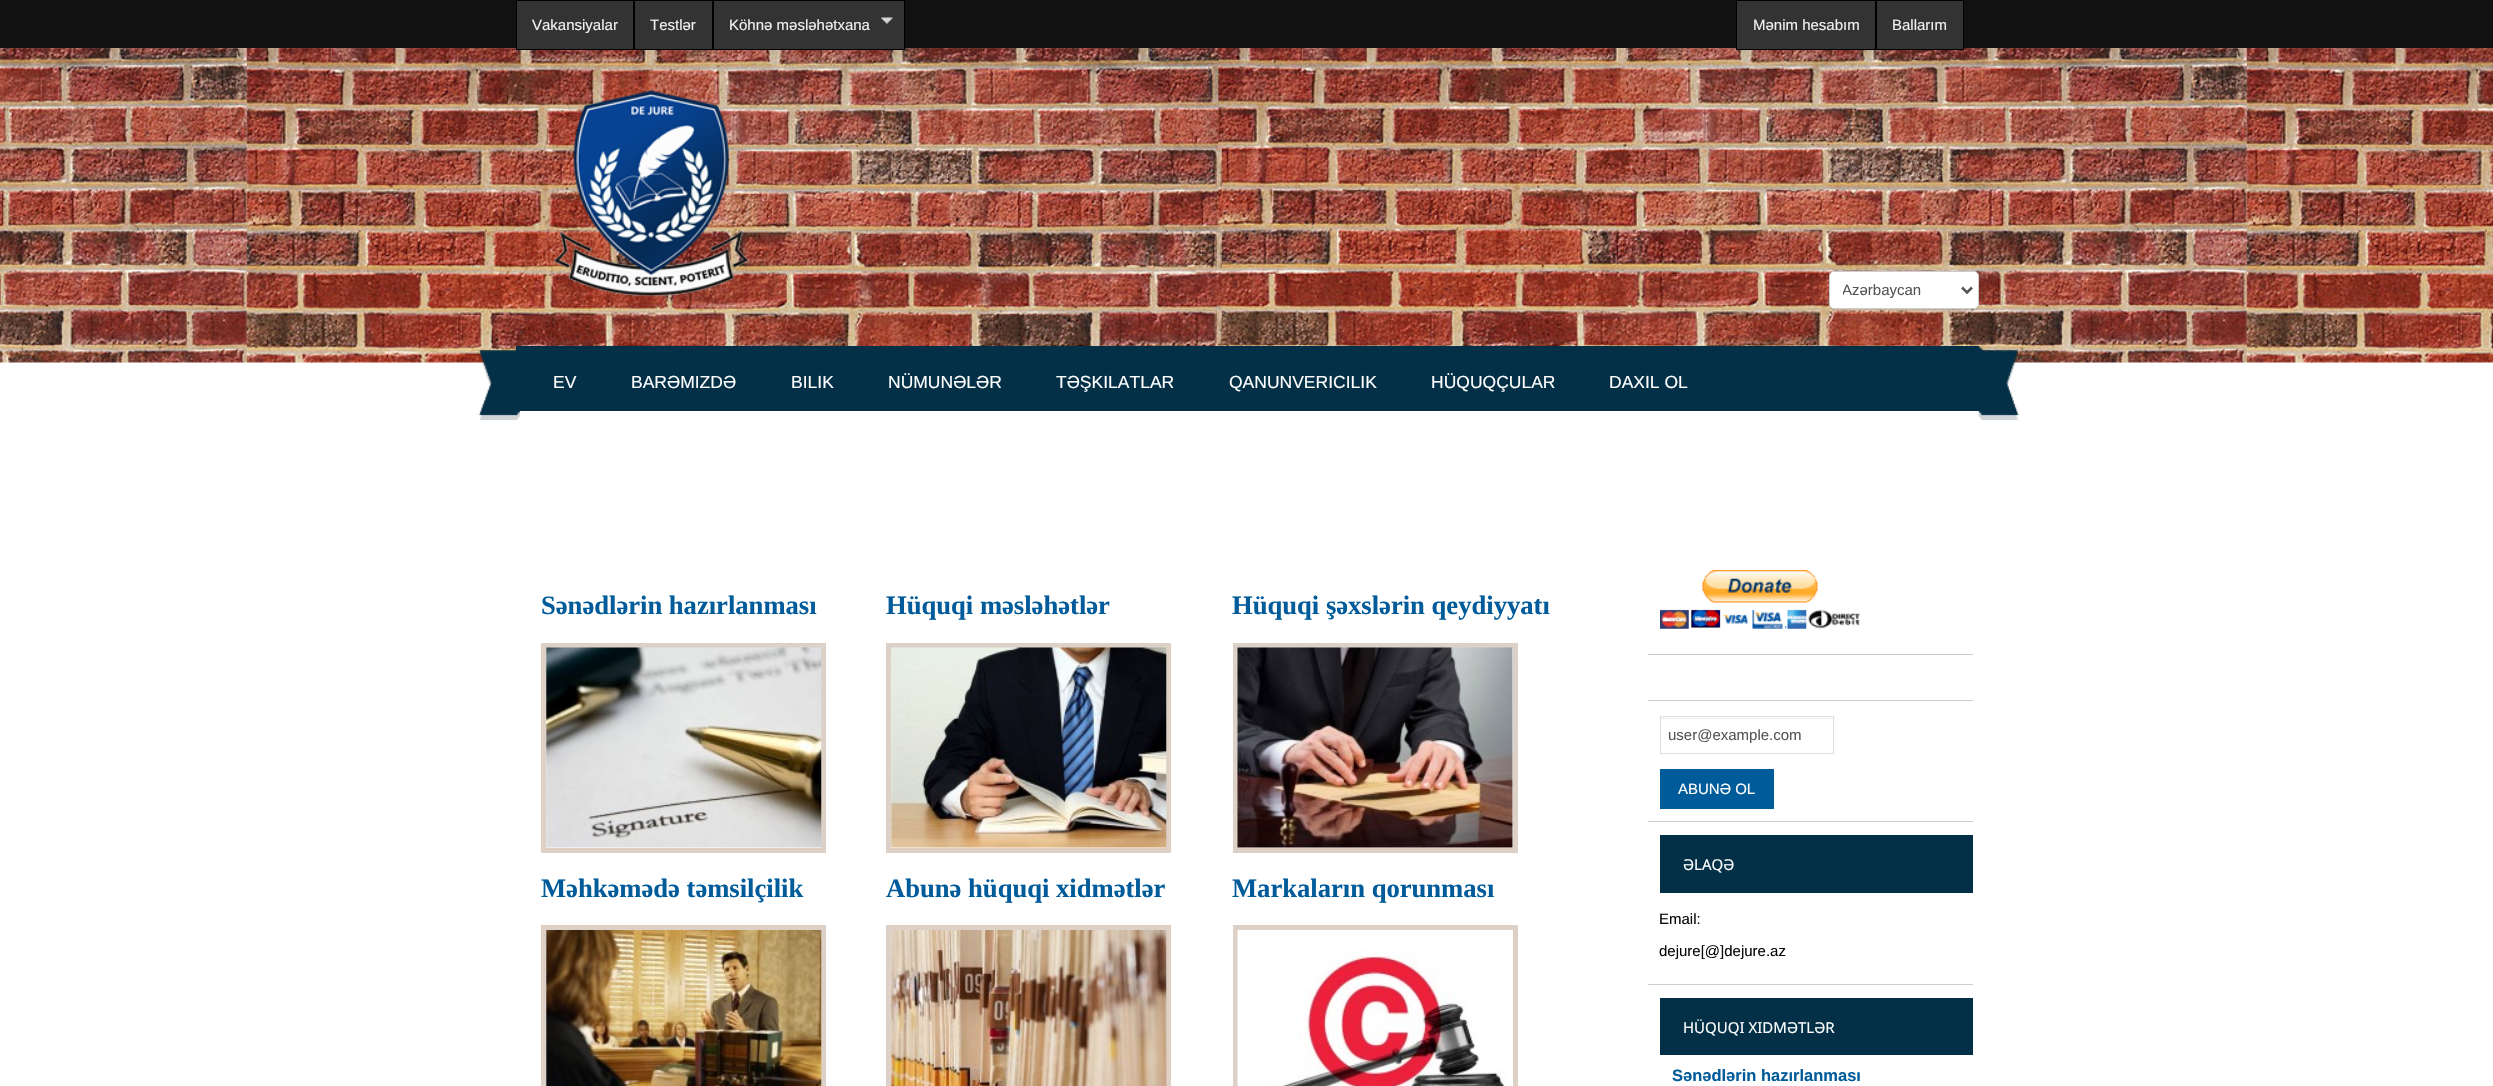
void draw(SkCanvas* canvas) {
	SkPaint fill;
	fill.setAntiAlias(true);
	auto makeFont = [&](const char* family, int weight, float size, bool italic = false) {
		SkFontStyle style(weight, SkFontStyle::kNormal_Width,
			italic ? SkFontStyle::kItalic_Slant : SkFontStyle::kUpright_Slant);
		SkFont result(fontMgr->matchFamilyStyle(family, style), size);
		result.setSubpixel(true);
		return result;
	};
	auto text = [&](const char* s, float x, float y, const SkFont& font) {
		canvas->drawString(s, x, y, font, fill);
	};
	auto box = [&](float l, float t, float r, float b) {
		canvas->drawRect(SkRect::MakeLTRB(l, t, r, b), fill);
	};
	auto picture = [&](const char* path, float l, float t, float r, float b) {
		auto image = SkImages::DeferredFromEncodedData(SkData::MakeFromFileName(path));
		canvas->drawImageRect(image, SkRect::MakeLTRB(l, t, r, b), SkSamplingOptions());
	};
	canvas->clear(0xFFFFFFFF);
	picture("image0.png", 0, 48, 2493, 363);
	fill.setColor(0xFF111111);
	box(0, 0, 2493, 48);
	fill.setColor(0xFF333333);
	canvas->drawRect(SkRect::MakeLTRB(516.5f, 0.5f, 633.5f, 49.5f), fill);
	fill.setStyle(SkPaint::kStroke_Style);
	fill.setStrokeWidth(1);
	fill.setColor(0xFF000000);
	canvas->drawRect(SkRect::MakeLTRB(516.5f, 0.5f, 633.5f, 49.5f), fill);
	fill.setStyle(SkPaint::kFill_Style);
	fill.setColor(0xFF333333);
	canvas->drawRect(SkRect::MakeLTRB(634.5f, 0.5f, 712.5f, 49.5f), fill);
	fill.setStyle(SkPaint::kStroke_Style);
	fill.setColor(0xFF000000);
	canvas->drawRect(SkRect::MakeLTRB(634.5f, 0.5f, 712.5f, 49.5f), fill);
	fill.setStyle(SkPaint::kFill_Style);
	fill.setColor(0xFF333333);
	canvas->drawRect(SkRect::MakeLTRB(713.5f, 0.5f, 904.5f, 49.5f), fill);
	fill.setStyle(SkPaint::kStroke_Style);
	fill.setColor(0xFF000000);
	canvas->drawRect(SkRect::MakeLTRB(713.5f, 0.5f, 904.5f, 49.5f), fill);
	picture("image1.png", 881, 17, 893, 24);
	fill.setStyle(SkPaint::kFill_Style);
	fill.setColor(0xFF333333);
	canvas->drawRect(SkRect::MakeLTRB(1736.5f, 0.5f, 1875.5f, 49.5f), fill);
	fill.setStyle(SkPaint::kStroke_Style);
	fill.setColor(0xFF000000);
	canvas->drawRect(SkRect::MakeLTRB(1736.5f, 0.5f, 1875.5f, 49.5f), fill);
	fill.setStyle(SkPaint::kFill_Style);
	fill.setColor(0xFF333333);
	canvas->drawRect(SkRect::MakeLTRB(1876.5f, 0.5f, 1963.5f, 49.5f), fill);
	fill.setStyle(SkPaint::kStroke_Style);
	fill.setColor(0xFF000000);
	canvas->drawRect(SkRect::MakeLTRB(1876.5f, 0.5f, 1963.5f, 49.5f), fill);
	picture("image2.png", 553, 90, 749, 297);
	fill.setStyle(SkPaint::kFill_Style);
	fill.setColor(0xFFFFFFFF);
	canvas->drawRoundRect(SkRect::MakeLTRB(1829.5f, 271.5f, 1978.5f, 308.5f), 4.5f, 4.5f, fill);
	fill.setStyle(SkPaint::kStroke_Style);
	fill.setColor(0xFFCCCCCC);
	canvas->drawRoundRect(SkRect::MakeLTRB(1829.5f, 271.5f, 1978.5f, 308.5f), 4.5f, 4.5f, fill);
	fill.setStrokeWidth(2.5f);
	fill.setColor(0xFF555555);
	canvas->drawPath(SkPathBuilder().moveTo(1962, 287.5f).lineTo(1967, 292.5f).lineTo(1972, 287.5f).detach(), fill);
	picture("image3.png", 478, 349, 520, 420);
	picture("image4.png", 1978, 346, 2019, 420);
	fill.setStyle(SkPaint::kFill_Style);
	fill.setColor(0xFF033047);
	box(516, 346, 1979, 411);
	fill.setStyle(SkPaint::kStroke_Style);
	fill.setStrokeWidth(5);
	fill.setColor(0xFFDDD0C7);
	canvas->drawRect(SkRect::MakeLTRB(543.5f, 645.5f, 823.5f, 850.5f), fill);
	picture("image5.png", 546, 647, 822, 848);
	canvas->drawRect(SkRect::MakeLTRB(888.5f, 645.5f, 1168.5f, 850.5f), fill);
	picture("image6.png", 891, 647, 1167, 848);
	canvas->drawRect(SkRect::MakeLTRB(1235.5f, 645.5f, 1515.5f, 850.5f), fill);
	picture("image7.png", 1237, 647, 1513, 848);
	canvas->drawRect(SkRect::MakeLTRB(543.5f, 927.5f, 823.5f, 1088.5f), fill);
	picture("image8.png", 546, 930, 822, 1086);
	canvas->drawRect(SkRect::MakeLTRB(888.5f, 927.5f, 1168.5f, 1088.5f), fill);
	picture("image9.png", 891, 930, 1167, 1086);
	canvas->drawRect(SkRect::MakeLTRB(1235.5f, 927.5f, 1515.5f, 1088.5f), fill);
	picture("image10.png", 1237, 930, 1507, 1086);
	fill.setStyle(SkPaint::kFill_Style);
	fill.setColor(0xFFCCCCCC);
	box(1648, 654, 1973, 655);
	picture("image11.png", 1660, 570, 1860, 629);
	box(1648, 700, 1973, 701);
	box(1648, 821, 1973, 822);
	fill.setColor(0xFFECECEC);
	box(1661, 718, 1833, 719);
	fill.setStyle(SkPaint::kStroke_Style);
	fill.setStrokeWidth(1);
	fill.setColor(0xFFDDDDDD);
	canvas->drawRect(SkRect::MakeLTRB(1660.5f, 716.5f, 1833.5f, 753.5f), fill);
	fill.setStyle(SkPaint::kFill_Style);
	fill.setColor(0xFF005B9A);
	box(1660, 769, 1774, 809);
	fill.setColor(0xFFCCCCCC);
	box(1648, 984, 1973, 985);
	fill.setColor(0xFF033047);
	box(1660, 835, 1973, 893);
	box(1660, 998, 1973, 1055);
	auto font1 = makeFont("Liberation Sans", 400, 15);
	fill.setColor(0xFFF1F1F1);
	text("Vakansiyalar", 532, 30, font1);
	text("Testlər", 650, 30, font1);
	text("Köhnə məsləhətxana", 729, 30, font1);
	text("Mənim hesabım", 1753, 30, font1);
	text("Ballarım", 1892, 30, font1);
	canvas->save();
	canvas->clipRect(SkRect::MakeLTRB(1843, 280, 1950, 300));
	fill.setColor(0xFF555555);
	text("Azərbaycan", 1842, 295, font1);
	canvas->restore();
	auto font2 = makeFont("Liberation Sans", 400, 17.5f);
	fill.setColor(0xFFFFFFFF);
	text("EV", 553, 388, font2);
	text("BARƏMIZDƏ", 631, 388, font2);
	text("BILIK", 791, 388, font2);
	text("NÜMUNƏLƏR", 888, 388, font2);
	text("TƏŞKILATLAR", 1056, 388, font2);
	text("QANUNVERICILIK", 1229, 388, font2);
	text("HÜQUQÇULAR", 1431, 388, font2);
	text("DAXIL OL", 1609, 388, font2);
	auto font3 = makeFont("Liberation Serif", 700, 26.6f);
	fill.setColor(0xFF005B9A);
	text("Sənədlərin hazırlanması", 541, 614, font3);
	text("Hüquqi məsləhətlər", 886, 614, font3);
	text("Hüquqi şəxslərin qeydiyyatı", 1232, 614, font3);
	text("Məhkəmədə təmsilçilik", 541, 897, font3);
	text("Abunə hüquqi xidmətlər", 886, 897, font3);
	text("Markaların qorunması", 1232, 897, font3);
	fill.setColor(0xFF555555);
	text("user@example.com", 1668, 740, font1);
	fill.setColor(0xFFFFFFFF);
	text("ABUNƏ OL", 1678, 794, font1);
	auto font4 = makeFont("Noto Sans", 400, 15);
	text("ƏLAQƏ", 1683, 870, font4);
	fill.setColor(0xFF0B0706);
	text("Email:", 1659, 924, font1);
	text("dejure[@]dejure.az", 1659, 956, font1);
	fill.setColor(0xFFFFFFFF);
	text("HÜQUQI XIDMƏTLƏR", 1683, 1033, font4);
	auto font5 = makeFont("Liberation Sans", 700, 16.5f);
	fill.setColor(0xFF005B9A);
	text("Sənədlərin hazırlanması", 1672, 1081, font5);
}
